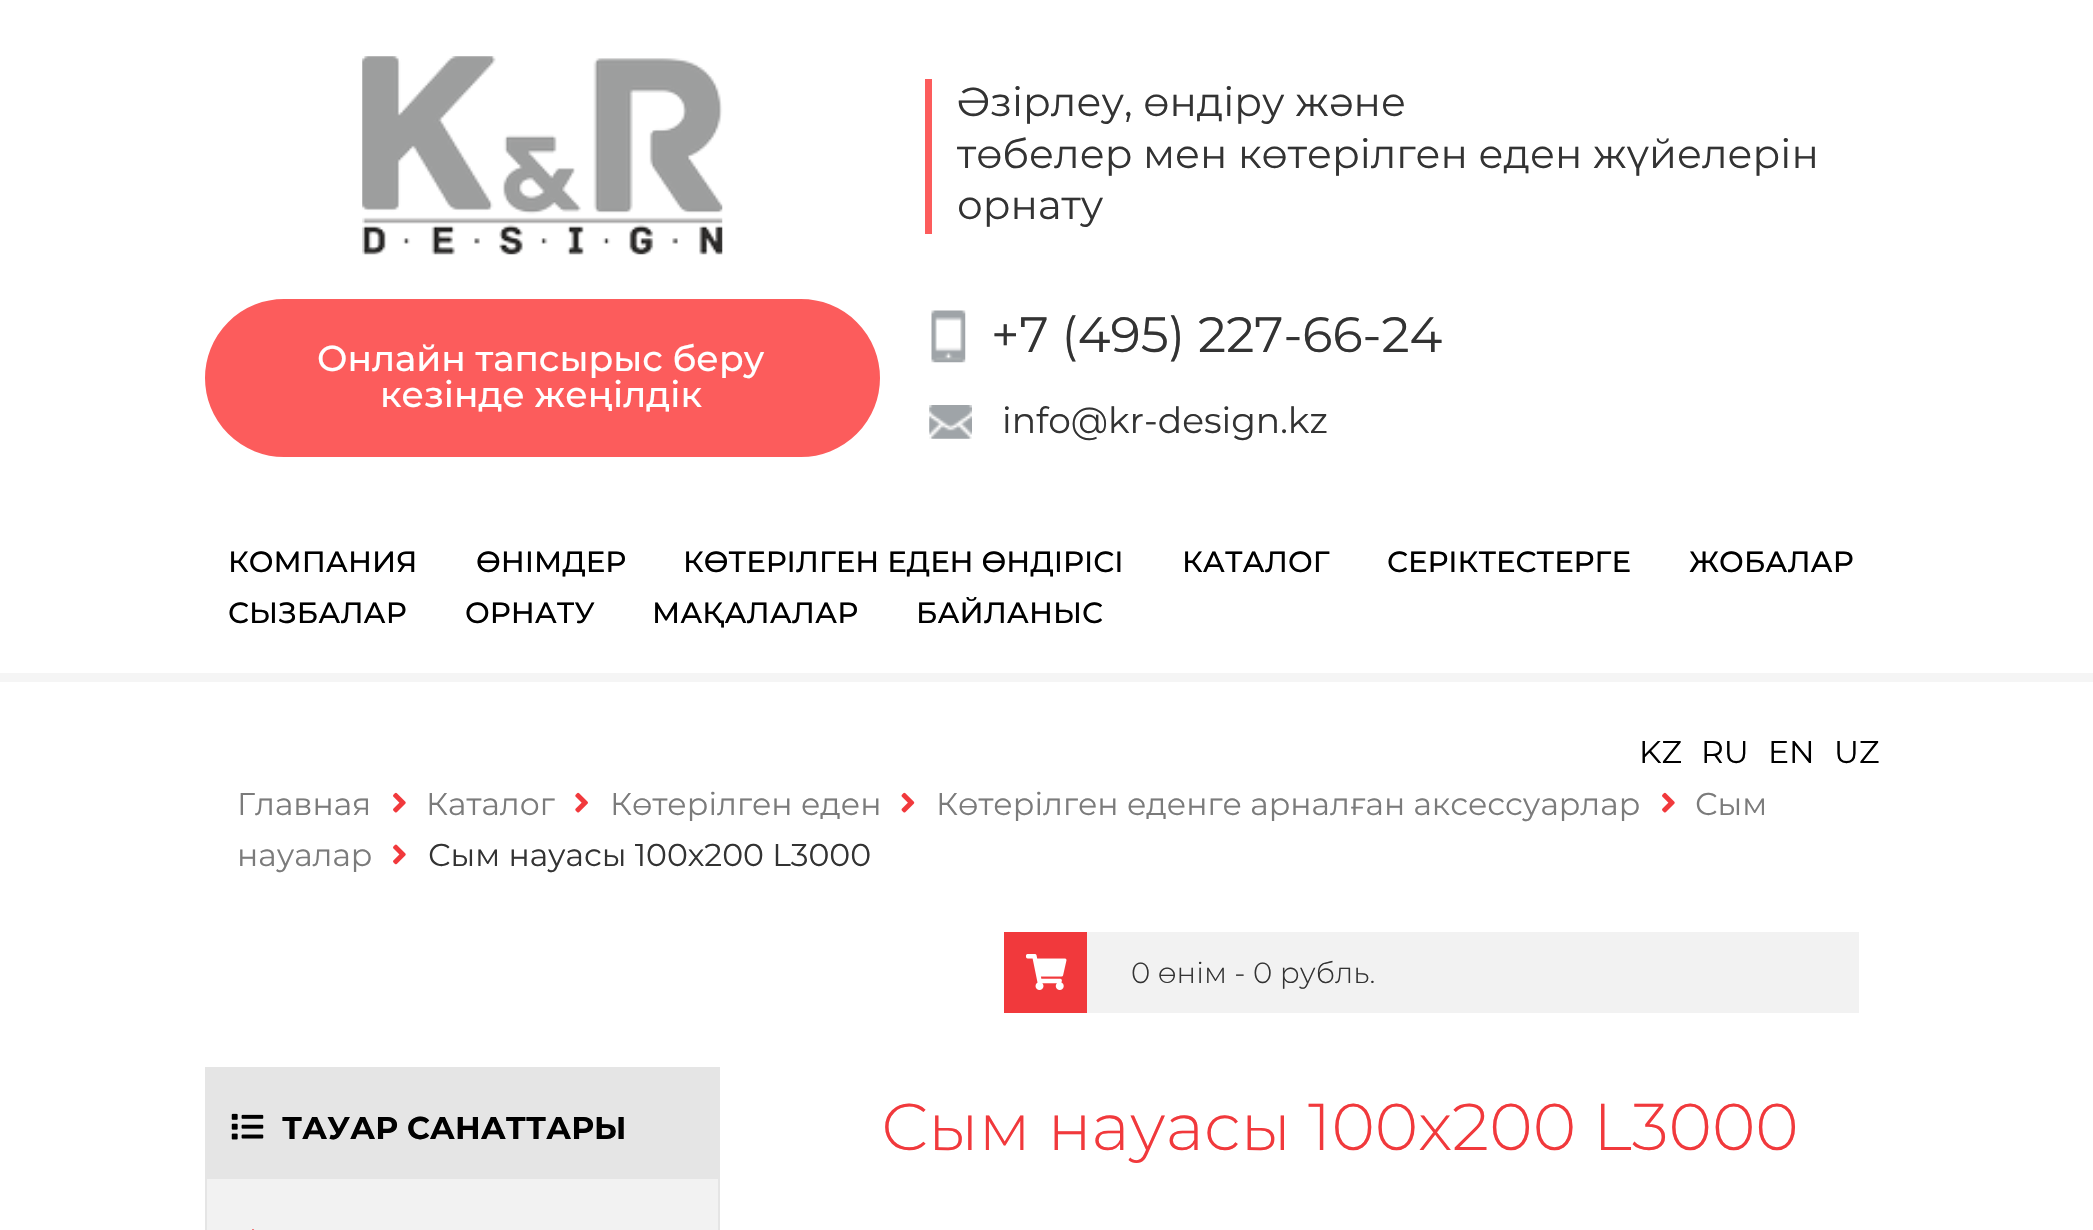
void draw(SkCanvas* canvas) {
	SkPaint fill;
	fill.setAntiAlias(true);
	auto makeFont = [&](const char* family, int weight, float size, bool italic = false) {
		SkFontStyle style(weight, SkFontStyle::kNormal_Width,
			italic ? SkFontStyle::kItalic_Slant : SkFontStyle::kUpright_Slant);
		SkFont result(fontMgr->matchFamilyStyle(family, style), size);
		result.setSubpixel(true);
		return result;
	};
	auto text = [&](const char* s, float x, float y, const SkFont& font) {
		canvas->drawString(s, x, y, font, fill);
	};
	auto box = [&](float l, float t, float r, float b) {
		canvas->drawRect(SkRect::MakeLTRB(l, t, r, b), fill);
	};
	auto picture = [&](const char* path, float l, float t, float r, float b) {
		auto image = SkImages::DeferredFromEncodedData(SkData::MakeFromFileName(path));
		canvas->drawImageRect(image, SkRect::MakeLTRB(l, t, r, b), SkSamplingOptions());
	};
	canvas->clear(0xFFFFFFFF);
	picture("image0.png", 362, 56, 723, 255);
	fill.setColor(0xFFFC5C5C);
	box(925, 79, 932, 234);
	canvas->drawRoundRect(SkRect::MakeLTRB(206, 300, 879, 456), 78, 78, fill);
	fill.setStyle(SkPaint::kStroke_Style);
	fill.setStrokeWidth(2);
	canvas->drawRoundRect(SkRect::MakeLTRB(206, 300, 879, 456), 78, 78, fill);
	picture("image1.png", 931, 310, 966, 363);
	picture("image2.png", 929, 405, 972, 439);
	fill.setStyle(SkPaint::kFill_Style);
	fill.setColor(0xFFF5F5F5);
	box(0, 673, 2093, 682);
	picture("image3.png", 393, 792, 406, 813);
	picture("image4.png", 575, 792, 588, 813);
	picture("image5.png", 901, 792, 915, 813);
	picture("image3.png", 1662, 792, 1675, 813);
	picture("image6.png", 393, 844, 406, 865);
	fill.setColor(0xFFF2F2F2);
	box(1087, 932, 1859, 1013);
	fill.setColor(0xFFF1393C);
	box(1004, 932, 1087, 1013);
	picture("image7.png", 1026, 954, 1067, 990);
	fill.setColor(0xFFE5E5E5);
	box(205, 1067, 720, 1177);
	picture("image8.png", 231, 1113, 264, 1140);
	fill.setColor(0xFFF2F2F2);
	canvas->drawRect(SkRect::MakeLTRB(206, 1178, 719, 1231), fill);
	fill.setStyle(SkPaint::kStroke_Style);
	fill.setColor(0xFFE5E5E5);
	canvas->drawRect(SkRect::MakeLTRB(206, 1178, 719, 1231), fill);
	picture("image9.png", 252, 1229, 255, 1230);
	auto font1 = makeFont("Montserrat", 400, 40.5f);
	fill.setStyle(SkPaint::kFill_Style);
	fill.setColor(0xFF333333);
	text("Әзірлеу, өндіру және", 957, 116, font1);
	text("төбелер мен көтерілген еден жүйелерін", 957, 168, font1);
	text("орнату", 957, 219, font1);
	auto font2 = makeFont("Montserrat", 500, 36);
	fill.setColor(0xFFFFFFFF);
	text("Онлайн тапсырыс беру", 317, 371, font2);
	text("кезінде жеңілдік", 380, 407, font2);
	auto font3 = makeFont("Montserrat", 400, 49.5f);
	fill.setColor(0xFF333333);
	text("+7 (495) 227-66-24", 991, 352, font3);
	auto font4 = makeFont("Montserrat", 400, 36);
	text("info@kr-design.kz", 1002, 433, font4);
	auto font5 = makeFont("Montserrat", 500, 29.25f);
	fill.setColor(0xFF000000);
	text("КОМПАНИЯ", 228, 572, font5);
	text("ӨНІМДЕР", 476, 572, font5);
	text("КӨТЕРІЛГЕН ЕДЕН ӨНДІРІСІ", 683, 572, font5);
	text("КАТАЛОГ", 1182, 572, font5);
	text("СЕРІКТЕСТЕРГЕ", 1387, 572, font5);
	text("ЖОБАЛАР", 1689, 572, font5);
	text("СЫЗБАЛАР", 228, 623, font5);
	text("ОРНАТУ", 465, 623, font5);
	text("МАҚАЛАЛАР", 652, 623, font5);
	text("БАЙЛАНЫС", 916, 623, font5);
	auto font6 = makeFont("Montserrat", 400, 31.5f);
	text("KZ", 1639, 763, font6);
	text("RU", 1701, 763, font6);
	text("EN", 1768, 763, font6);
	text("UZ", 1834, 763, font6);
	fill.setColor(0xFF7B7B7B);
	text("Главная", 237, 815, font6);
	text("Каталог", 426, 815, font6);
	text("Көтерілген еден", 610, 815, font6);
	text("Көтерілген еденге арналған аксессуарлар", 936, 815, font6);
	text("Сым", 1695, 815, font6);
	text("науалар", 237, 866, font6);
	fill.setColor(0xFF333333);
	text("Сым науасы 100х200 L3000", 428, 866, font6);
	auto font7 = makeFont("Montserrat", 300, 29.25f);
	text("0 өнім - 0 рубль.", 1131, 983, font7);
	auto font8 = makeFont("Montserrat", 700, 31.5f);
	fill.setColor(0xFF000000);
	text("ТАУАР САНАТТАРЫ", 282, 1139, font8);
	auto font9 = makeFont("Montserrat", 300, 66);
	fill.setColor(0xFFF1393C);
	text("Сым науасы 100х200 L3000", 881, 1150, font9);
}
